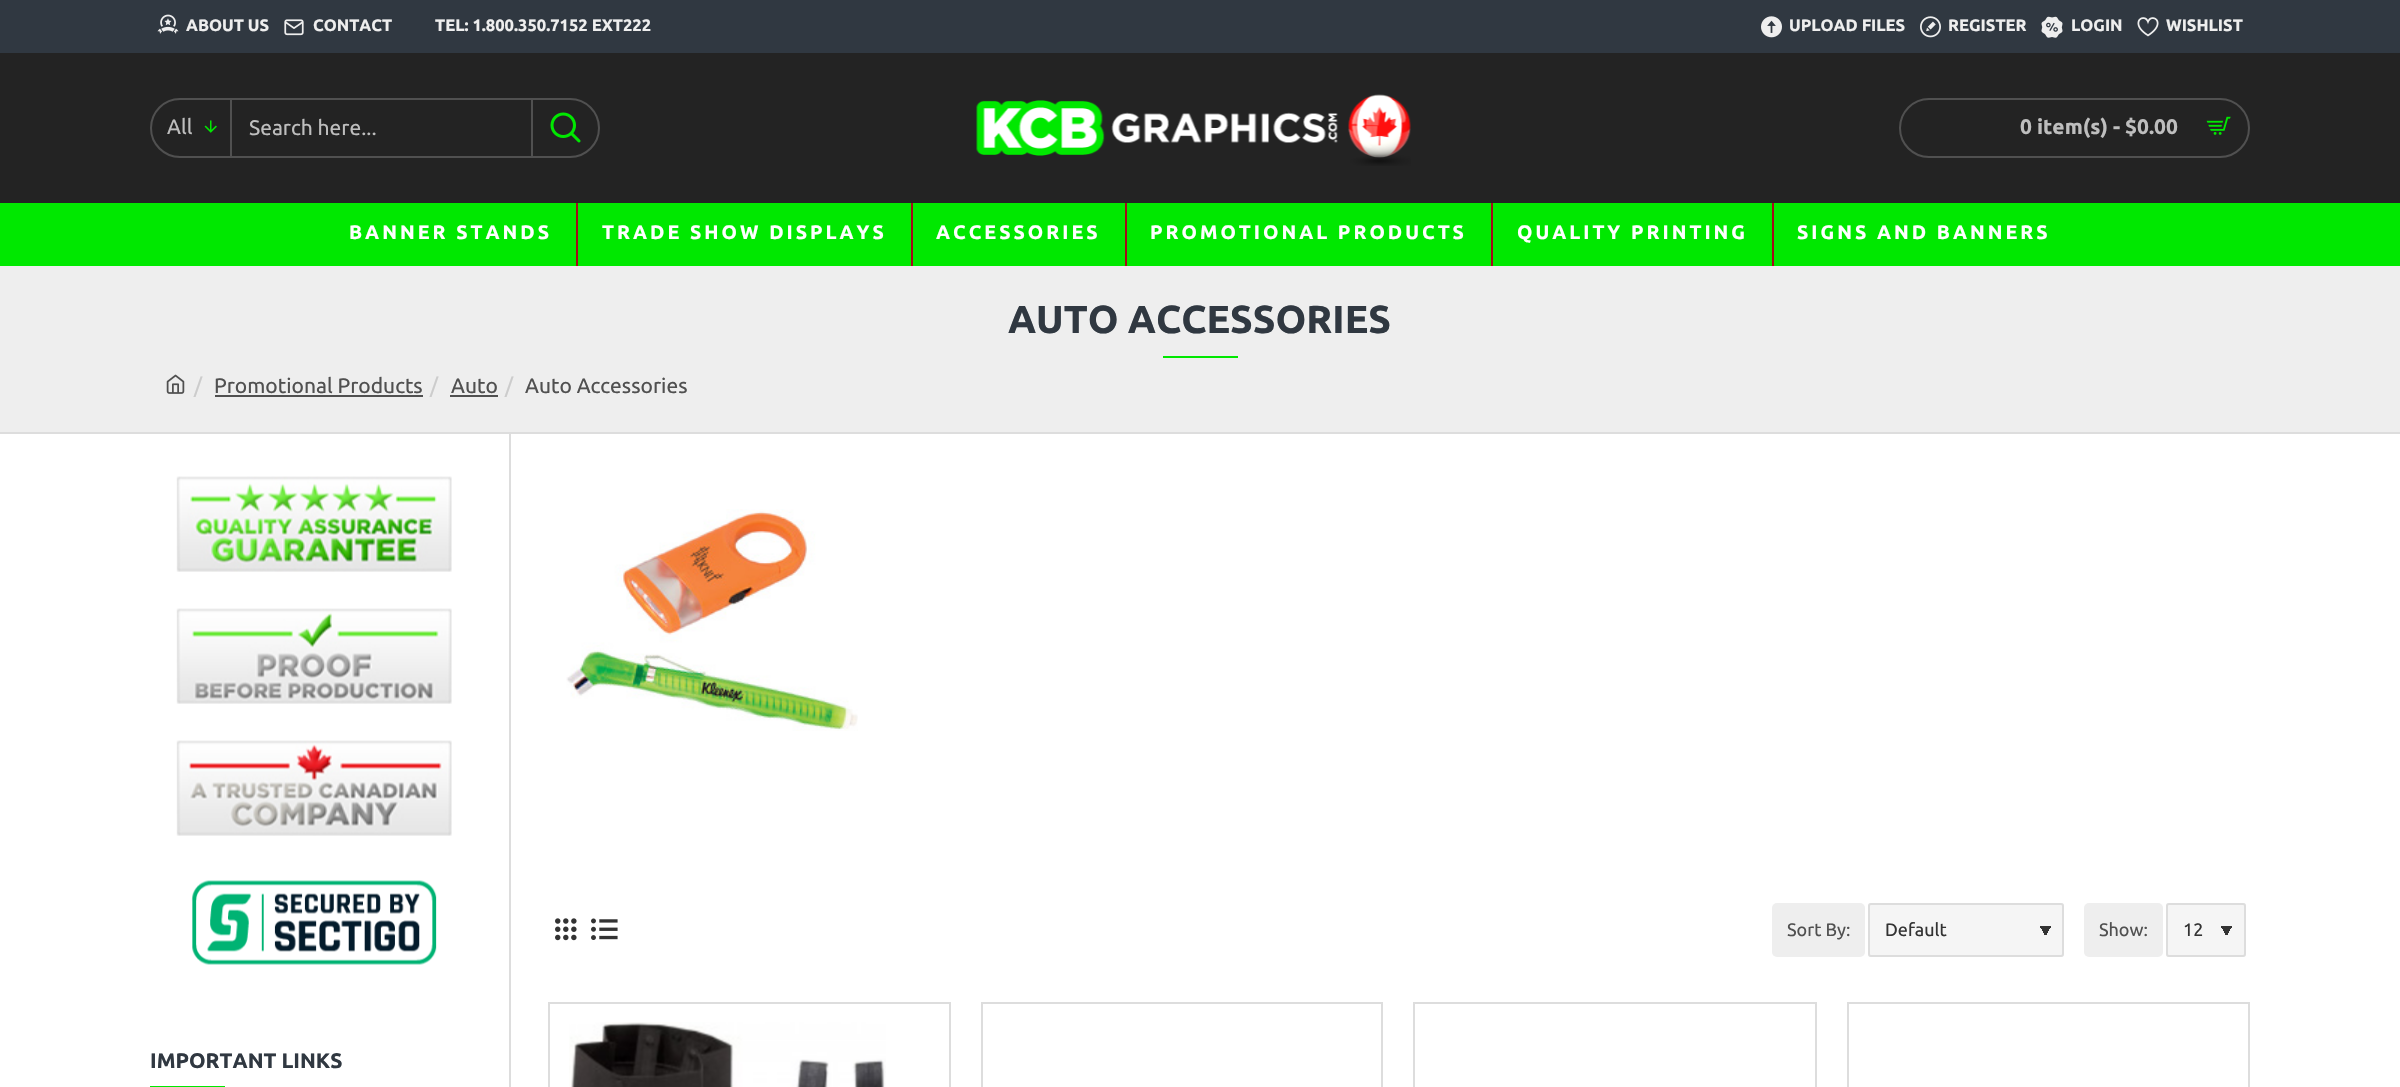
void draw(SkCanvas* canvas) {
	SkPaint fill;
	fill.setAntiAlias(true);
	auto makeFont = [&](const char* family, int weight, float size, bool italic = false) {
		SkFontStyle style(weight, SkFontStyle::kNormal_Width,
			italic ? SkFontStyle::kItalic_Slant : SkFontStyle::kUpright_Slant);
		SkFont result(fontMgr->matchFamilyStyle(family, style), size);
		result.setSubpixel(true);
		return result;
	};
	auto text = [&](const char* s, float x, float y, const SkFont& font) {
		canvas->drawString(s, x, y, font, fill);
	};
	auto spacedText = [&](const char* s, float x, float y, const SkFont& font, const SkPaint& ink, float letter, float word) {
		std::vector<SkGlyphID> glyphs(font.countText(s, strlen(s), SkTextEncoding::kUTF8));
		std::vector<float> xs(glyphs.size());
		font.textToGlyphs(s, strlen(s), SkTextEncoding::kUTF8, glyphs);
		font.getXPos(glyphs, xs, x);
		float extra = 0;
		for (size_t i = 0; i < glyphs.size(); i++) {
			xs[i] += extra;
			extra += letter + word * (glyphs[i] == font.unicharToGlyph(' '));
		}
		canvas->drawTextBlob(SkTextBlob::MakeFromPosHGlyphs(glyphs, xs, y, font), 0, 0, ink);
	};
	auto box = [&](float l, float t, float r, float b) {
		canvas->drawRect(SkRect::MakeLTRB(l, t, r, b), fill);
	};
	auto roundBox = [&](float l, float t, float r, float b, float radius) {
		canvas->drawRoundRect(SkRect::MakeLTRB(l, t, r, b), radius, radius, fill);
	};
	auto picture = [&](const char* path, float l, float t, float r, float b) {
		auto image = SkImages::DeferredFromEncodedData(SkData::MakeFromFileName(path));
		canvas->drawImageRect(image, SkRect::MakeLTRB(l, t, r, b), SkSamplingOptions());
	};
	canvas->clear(0xFFFFFFFF);
	fill.setColor(0xFF232323);
	box(0, 53, 2400, 203);
	fill.setColor(0xFF303841);
	box(0, 0, 2400, 53);
	picture("image0.png", 157, 14, 179, 34);
	picture("image1.png", 284, 19, 304, 36);
	picture("image2.png", 1761, 16, 1782, 38);
	picture("image3.png", 1920, 16, 1941, 38);
	picture("image4.png", 2041, 16, 2063, 38);
	picture("image5.png", 2137, 17, 2159, 37);
	fill.setStyle(SkPaint::kStroke_Style);
	fill.setStrokeWidth(2);
	fill.setColor(0xFF505050);
	canvas->drawRoundRect(SkRect::MakeLTRB(151, 99, 599, 157), 29, 29, fill);
	fill.setStyle(SkPaint::kFill_Style);
	box(230, 99, 232, 156);
	picture("image6.png", 204, 120, 217, 133);
	box(531, 99, 533, 156);
	picture("image7.png", 550, 112, 581, 143);
	picture("image8.png", 976, 94, 1411, 166);
	fill.setStyle(SkPaint::kStroke_Style);
	canvas->drawRoundRect(SkRect::MakeLTRB(1900, 99, 2249, 157), 29, 29, fill);
	picture("image9.png", 2206, 116, 2231, 135);
	fill.setStyle(SkPaint::kFill_Style);
	fill.setColor(0xFF00E800);
	box(0, 203, 2400, 266);
	fill.setColor(0xFFA8081B);
	box(576, 203, 578, 266);
	box(911, 203, 913, 266);
	box(1125, 203, 1127, 266);
	box(1491, 203, 1493, 266);
	box(1772, 203, 1774, 266);
	fill.setColor(0xFFEEEEEE);
	box(0, 266, 2400, 432);
	fill.setColor(0xFF00E800);
	box(1163, 356, 1238, 358);
	fill.setColor(0xFFDDDDDD);
	box(0, 432, 2400, 434);
	picture("image10.png", 166, 374, 185, 394);
	fill.setColor(0xFF505050);
	box(215, 395, 423, 397);
	box(450, 395, 498, 397);
	picture("image11.png", 566, 509, 858, 731);
	picture("image12.png", 555, 918, 577, 941);
	picture("image13.png", 591, 918, 618, 940);
	fill.setColor(0xFFEEEEEE);
	roundBox(1772, 903, 1865, 957, 5);
	fill.setColor(0xFFF5F5F5);
	roundBox(1868, 903, 2064, 957, 3);
	{
		const SkColor colors[] = {0xFF333333, 0xFFF5F5F5};
		const float stops[] = {0.63f, 0.63f};
		const SkPoint ends[] = {{2056, 924}, {2035, 936}};
		fill.setShader(SkGradientShader::MakeLinear(ends, colors, stops, 2, SkTileMode::kClamp));
		fill.setAlpha(255);
	}
	box(2040, 926, 2051, 935);
	{
		const SkColor colors[] = {0x00F5F5F5, 0xFFF5F5F5};
		const float stops[] = {0.63f, 0.63f};
		const SkPoint ends[] = {{2035, 924}, {2056, 936}};
		fill.setShader(SkGradientShader::MakeLinear(ends, colors, stops, 2, SkTileMode::kClamp));
		fill.setAlpha(255);
	}
	box(2047, 928, 2051, 935);
	fill.setStyle(SkPaint::kStroke_Style);
	fill.setShader(nullptr);
	fill.setColor(0xFFDDDDDD);
	canvas->drawRoundRect(SkRect::MakeLTRB(1869, 904, 2063, 956), 2, 2, fill);
	fill.setStyle(SkPaint::kFill_Style);
	fill.setColor(0xFFEEEEEE);
	roundBox(2084, 903, 2163, 957, 5);
	fill.setColor(0xFFF5F5F5);
	roundBox(2166, 903, 2246, 957, 3);
	{
		const SkColor colors[] = {0xFF333333, 0xFFF5F5F5};
		const float stops[] = {0.63f, 0.63f};
		const SkPoint ends[] = {{2237, 924}, {2216, 936}};
		fill.setShader(SkGradientShader::MakeLinear(ends, colors, stops, 2, SkTileMode::kClamp));
		fill.setAlpha(255);
	}
	box(2221, 926, 2232, 935);
	{
		const SkColor colors[] = {0x00F5F5F5, 0xFFF5F5F5};
		const float stops[] = {0.63f, 0.63f};
		const SkPoint ends[] = {{2216, 924}, {2237, 936}};
		fill.setShader(SkGradientShader::MakeLinear(ends, colors, stops, 2, SkTileMode::kClamp));
		fill.setAlpha(255);
	}
	box(2228, 928, 2232, 935);
	fill.setStyle(SkPaint::kStroke_Style);
	fill.setShader(nullptr);
	fill.setColor(0xFFDDDDDD);
	canvas->drawRoundRect(SkRect::MakeLTRB(2167, 904, 2245, 956), 2, 2, fill);
	canvas->drawRect(SkRect::MakeLTRB(549, 1003, 950, 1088), fill);
	picture("image14.png", 569, 1022, 886, 1087);
	canvas->drawRect(SkRect::MakeLTRB(982, 1003, 1382, 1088), fill);
	canvas->drawRect(SkRect::MakeLTRB(1414, 1003, 1816, 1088), fill);
	canvas->drawRect(SkRect::MakeLTRB(1848, 1003, 2249, 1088), fill);
	fill.setStyle(SkPaint::kFill_Style);
	box(509, 434, 511, 1087);
	picture("image15.png", 176, 476, 452, 572);
	picture("image16.png", 176, 608, 452, 704);
	picture("image17.png", 176, 740, 452, 836);
	picture("image18.png", 191, 880, 437, 965);
	fill.setColor(0xFF00E800);
	box(150, 1086, 225, 1087);
	auto font1 = makeFont("Ubuntu", 700, 16.5f);
	fill.setColor(0xFFEEEEEE);
	text("ABOUT US", 186, 31, font1);
	text("CONTACT", 313, 31, font1);
	text("TEL: 1.800.350.7152 EXT222", 435, 31, font1);
	canvas->save();
	canvas->clipRect(SkRect::MakeLTRB(1790, 14, 1905, 39));
	text("UPLOAD FILES", 1789, 31, font1);
	canvas->restore();
	text("REGISTER", 1948, 31, font1);
	text("LOGIN", 2071, 31, font1);
	text("WISHLIST", 2166, 31, font1);
	auto font2 = makeFont("Ubuntu", 400, 21);
	fill.setColor(0xFFBEBEBE);
	text("All", 167, 134, font2);
	text("Search here...", 249, 135, font2);
	auto font3 = makeFont("Ubuntu", 700, 21);
	text("0 item(s) - $0.00", 2020, 134, font3);
	auto font4 = makeFont("Ubuntu", 700, 19.5f);
	fill.setColor(0xFFFFFFFF);
	spacedText("BANNER STANDS", 349, 239, font4, fill, 3, 0);
	spacedText("TRADE SHOW DISPLAYS", 602, 239, font4, fill, 3, 0);
	spacedText("ACCESSORIES", 936, 239, font4, fill, 3, 0);
	spacedText("PROMOTIONAL PRODUCTS", 1150, 239, font4, fill, 3, 0);
	spacedText("QUALITY PRINTING", 1517, 239, font4, fill, 3, 0);
	spacedText("SIGNS AND BANNERS", 1797, 239, font4, fill, 3, 0);
	auto font5 = makeFont("Ubuntu", 700, 39);
	fill.setColor(0xFF303841);
	text("AUTO ACCESSORIES", 1008, 333, font5);
	fill.setColor(0xFFCCCCCC);
	text("/", 194, 393, font2);
	fill.setColor(0xFF505050);
	text("Promotional Products", 214, 393, font2);
	fill.setColor(0xFFCCCCCC);
	text("/", 430, 393, font2);
	fill.setColor(0xFF505050);
	text("Auto", 451, 393, font2);
	fill.setColor(0xFFCCCCCC);
	text("/", 505, 393, font2);
	fill.setColor(0xFF505050);
	text("Auto Accessories", 525, 393, font2);
	auto font6 = makeFont("Ubuntu", 400, 18);
	text("Sort By:", 1787, 936, font6);
	fill.setColor(0xFF333333);
	text("Default", 1885, 936, font6);
	fill.setColor(0xFF505050);
	text("Show:", 2099, 936, font6);
	fill.setColor(0xFF333333);
	text("12", 2183, 936, font6);
	fill.setColor(0xFF303841);
	text("IMPORTANT LINKS", 150, 1068, font3);
}
